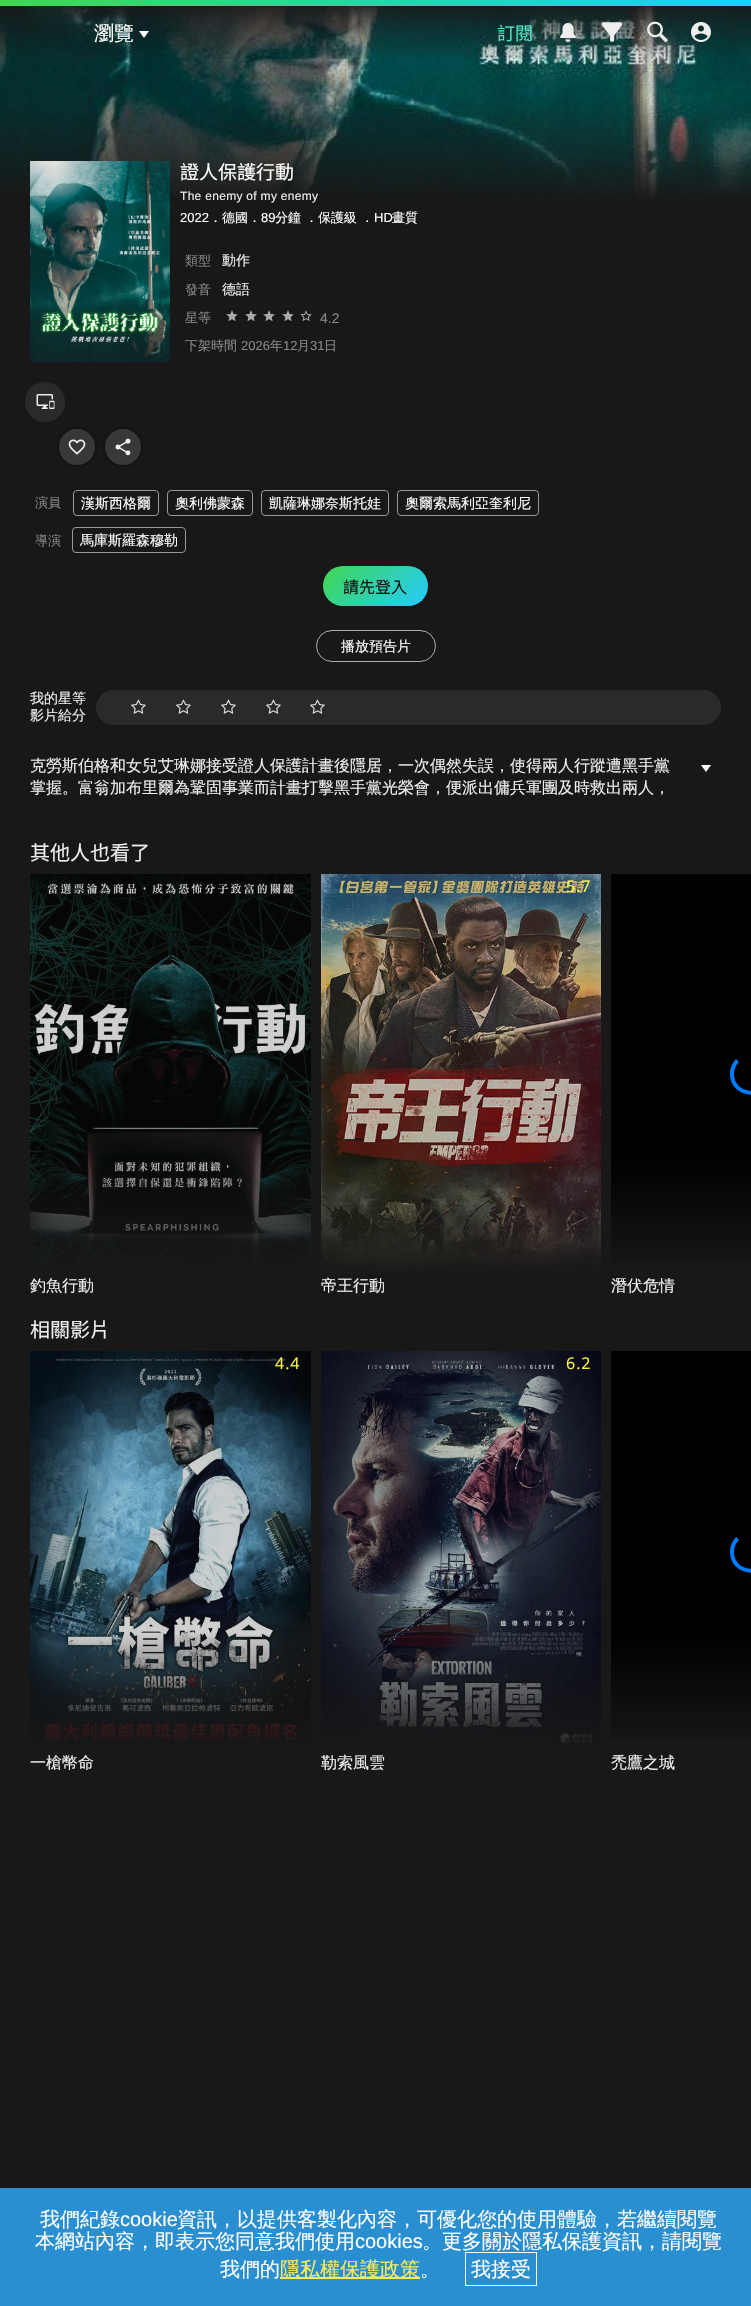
void draw(SkCanvas* canvas) {
	SkPaint fill;
	fill.setAntiAlias(true);
	auto makeFont = [&](const char* family, int weight, float size, bool italic = false) {
		SkFontStyle style(weight, SkFontStyle::kNormal_Width,
			italic ? SkFontStyle::kItalic_Slant : SkFontStyle::kUpright_Slant);
		SkFont result(fontMgr->matchFamilyStyle(family, style), size);
		result.setSubpixel(true);
		return result;
	};
	auto text = [&](const char* s, float x, float y, const SkFont& font) {
		canvas->drawString(s, x, y, font, fill);
	};
	auto spacedText = [&](const char* s, float x, float y, const SkFont& font, const SkPaint& ink, float letter, float word) {
		std::vector<SkGlyphID> glyphs(font.countText(s, strlen(s), SkTextEncoding::kUTF8));
		std::vector<float> xs(glyphs.size());
		font.textToGlyphs(s, strlen(s), SkTextEncoding::kUTF8, glyphs);
		font.getXPos(glyphs, xs, x);
		float extra = 0;
		for (size_t i = 0; i < glyphs.size(); i++) {
			xs[i] += extra;
			extra += letter + word * (glyphs[i] == font.unicharToGlyph(' '));
		}
		canvas->drawTextBlob(SkTextBlob::MakeFromPosHGlyphs(glyphs, xs, y, font), 0, 0, ink);
	};
	auto box = [&](float l, float t, float r, float b) {
		canvas->drawRect(SkRect::MakeLTRB(l, t, r, b), fill);
	};
	auto roundBox = [&](float l, float t, float r, float b, float radius) {
		canvas->drawRoundRect(SkRect::MakeLTRB(l, t, r, b), radius, radius, fill);
	};
	auto picture = [&](const char* path, float l, float t, float r, float b) {
		auto image = SkImages::DeferredFromEncodedData(SkData::MakeFromFileName(path));
		canvas->drawImageRect(image, SkRect::MakeLTRB(l, t, r, b), SkSamplingOptions());
	};
	canvas->clear(0xFF181818);
	picture("image4.png", 0, 6, 751, 199);
	picture("image5.png", 0, 6, 751, 200);
	{
		const SkColor colors[] = {0xFF181818, 0x00181818};
		const float stops[] = {0, 1};
		const SkPoint ends[] = {{376, 0}, {376, 60}};
		fill.setShader(SkGradientShader::MakeLinear(ends, colors, stops, 2, SkTileMode::kClamp));
		fill.setAlpha(255);
	}
	box(0, 6, 751, 59);
	{
		const SkColor colors[] = {0xFF3FD750, 0xFF24CBFF};
		const float stops[] = {0, 1};
		const SkPoint ends[] = {{184, -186}, {567, 192}};
		fill.setShader(SkGradientShader::MakeLinear(ends, colors, stops, 2, SkTileMode::kClamp));
		fill.setAlpha(255);
	}
	box(0, 0, 751, 6);
	fill.setShader(nullptr);
	fill.setColor(0xFFFFFFFF);
	canvas->drawPath(SkPathBuilder().moveTo(139, 31).lineTo(149, 31).lineTo(144, 38).close().detach(), fill);
	picture("image0.png", 560, 23, 576, 42);
	picture("image1.png", 601, 22, 623, 42);
	picture("image2.png", 647, 21, 668, 43);
	picture("image3.png", 691, 22, 711, 42);
	picture("image6.png", 30, 161, 170, 362);
	fill.setColor(0x80000000);
	fill.setMaskFilter(SkMaskFilter::MakeBlur(kNormal_SkBlurStyle, 2.5f));
	canvas->drawRoundRect(SkRect::MakeLTRB(59, 429, 95, 465), 18, 18, fill);
	fill.setMaskFilter(nullptr);
	fill.setColor(0xFF2A2A2A);
	canvas->drawCircle(45, 402, 20, fill);
	picture("image7.png", 36, 394, 55, 409);
	fill.setColor(0xFF383838);
	canvas->drawCircle(77, 447, 18, fill);
	picture("image8.png", 68, 439, 86, 455);
	fill.setColor(0x80000000);
	fill.setMaskFilter(SkMaskFilter::MakeBlur(kNormal_SkBlurStyle, 2.5f));
	canvas->drawRoundRect(SkRect::MakeLTRB(105, 429, 141, 465), 18, 18, fill);
	fill.setMaskFilter(nullptr);
	fill.setColor(0xFF383838);
	canvas->drawCircle(123, 447, 18, fill);
	picture("image9.png", 115, 438, 131, 456);
	picture("image10.png", 226, 310, 238, 322);
	picture("image10.png", 245, 310, 257, 322);
	picture("image10.png", 263, 310, 275, 322);
	picture("image10.png", 282, 310, 294, 322);
	picture("image11.png", 300, 310, 312, 322);
	fill.setStyle(SkPaint::kStroke_Style);
	fill.setStrokeWidth(1);
	fill.setColor(0xFF979797);
	canvas->drawRoundRect(SkRect::MakeLTRB(73.5f, 490.5f, 158.5f, 515.5f), 3.5f, 3.5f, fill);
	canvas->drawRoundRect(SkRect::MakeLTRB(167.5f, 490.5f, 252.5f, 515.5f), 3.5f, 3.5f, fill);
	canvas->drawRoundRect(SkRect::MakeLTRB(261.5f, 490.5f, 388.5f, 515.5f), 3.5f, 3.5f, fill);
	canvas->drawRoundRect(SkRect::MakeLTRB(397.5f, 490.5f, 538.5f, 515.5f), 3.5f, 3.5f, fill);
	canvas->drawRoundRect(SkRect::MakeLTRB(72.5f, 527.5f, 185.5f, 552.5f), 3.5f, 3.5f, fill);
	fill.setStyle(SkPaint::kFill_Style);
	{
		const SkColor colors[] = {0xFF3FD750, 0xFF24CBFF};
		const float stops[] = {0, 1};
		const SkPoint ends[] = {{339, 550}, {412, 622}};
		fill.setShader(SkGradientShader::MakeLinear(ends, colors, stops, 2, SkTileMode::kClamp));
		fill.setAlpha(255);
	}
	roundBox(323, 566, 428, 606, 20);
	fill.setStyle(SkPaint::kStroke_Style);
	fill.setShader(nullptr);
	fill.setColor(0xFFAAAAAA);
	canvas->drawRoundRect(SkRect::MakeLTRB(316.5f, 630.5f, 435.5f, 661.5f), 15.5f, 15.5f, fill);
	fill.setStyle(SkPaint::kFill_Style);
	fill.setColor(0xFF2A2A2A);
	roundBox(96, 690, 721, 725, 17.5f);
	picture("image12.png", 131, 699, 146, 714);
	picture("image12.png", 176, 699, 191, 714);
	picture("image12.png", 221, 699, 236, 714);
	picture("image12.png", 266, 699, 281, 714);
	picture("image12.png", 310, 699, 325, 714);
	fill.setColor(0xFFFFFFFF);
	canvas->drawPath(SkPathBuilder().moveTo(701, 765).lineTo(711, 765).lineTo(706, 772).close().detach(), fill);
	picture("image13.png", 30, 874, 311, 1275);
	{
		const SkColor colors[] = {0x00181818, 0xFF181818};
		const float stops[] = {0.7f, 1};
		const SkPoint ends[] = {{170, 874}, {171, 1275}};
		fill.setShader(SkGradientShader::MakeLinear(ends, colors, stops, 2, SkTileMode::kClamp));
		fill.setAlpha(255);
	}
	box(30, 1160, 311, 1275);
	picture("image14.png", 321, 874, 601, 1274);
	{
		const SkColor colors[] = {0x00181818, 0xFF181818};
		const float stops[] = {0.7f, 1};
		const SkPoint ends[] = {{461, 874}, {461, 1275}};
		fill.setShader(SkGradientShader::MakeLinear(ends, colors, stops, 2, SkTileMode::kClamp));
		fill.setAlpha(255);
	}
	box(321, 1157, 601, 1274);
	{
		const SkColor colors[] = {0xFF000000, 0xFF181818};
		const float stops[] = {0.7f, 1};
		const SkPoint ends[] = {{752, 874}, {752, 1275}};
		fill.setShader(SkGradientShader::MakeLinear(ends, colors, stops, 2, SkTileMode::kClamp));
		fill.setAlpha(255);
	}
	box(611, 874, 751, 1262);
	fill.setStyle(SkPaint::kStroke_Style);
	fill.setStrokeWidth(4);
	fill.setShader(nullptr);
	fill.setColor(0xFF007AFF);
	canvas->drawPath(SkPathBuilder().moveTo(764.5f, 1060.5f).cubicTo(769, 1065, 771, 1071.5f, 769.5f, 1077.5f).cubicTo(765, 1100, 732, 1096.5f, 732, 1074).cubicTo(732, 1069, 734, 1064, 737.5f, 1060.5f).detach(), fill);
	picture("image15.png", 30, 1351, 311, 1752);
	fill.setStyle(SkPaint::kFill_Style);
	{
		const SkColor colors[] = {0x00181818, 0xFF181818};
		const float stops[] = {0.7f, 1};
		const SkPoint ends[] = {{170, 1351}, {171, 1752}};
		fill.setShader(SkGradientShader::MakeLinear(ends, colors, stops, 2, SkTileMode::kClamp));
		fill.setAlpha(255);
	}
	box(30, 1634, 311, 1752);
	picture("image16.png", 321, 1351, 601, 1751);
	{
		const SkColor colors[] = {0x00181818, 0xFF181818};
		const float stops[] = {0.7f, 1};
		const SkPoint ends[] = {{461, 1351}, {461, 1752}};
		fill.setShader(SkGradientShader::MakeLinear(ends, colors, stops, 2, SkTileMode::kClamp));
		fill.setAlpha(255);
	}
	box(321, 1636, 601, 1751);
	{
		const SkColor colors[] = {0xFF000000, 0xFF181818};
		const float stops[] = {0.7f, 1};
		const SkPoint ends[] = {{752, 1351}, {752, 1752}};
		fill.setShader(SkGradientShader::MakeLinear(ends, colors, stops, 2, SkTileMode::kClamp));
		fill.setAlpha(255);
	}
	box(611, 1351, 751, 1739);
	fill.setStyle(SkPaint::kStroke_Style);
	fill.setShader(nullptr);
	fill.setColor(0xFF007AFF);
	canvas->drawPath(SkPathBuilder().moveTo(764.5f, 1538.5f).cubicTo(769, 1543, 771, 1549.5f, 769.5f, 1555.5f).cubicTo(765, 1578, 732, 1574.5f, 732, 1552).cubicTo(732, 1547, 734, 1542, 737.5f, 1538.5f).detach(), fill);
	fill.setStyle(SkPaint::kFill_Style);
	fill.setColor(0xFF298FD1);
	box(0, 2188, 751, 2306);
	fill.setColor(0xFFFDEC57);
	box(280, 2277, 420, 2279);
	fill.setStyle(SkPaint::kStroke_Style);
	fill.setStrokeWidth(1);
	fill.setColor(0xFFFFFFFF);
	canvas->drawRect(SkRect::MakeLTRB(465.5f, 2252.5f, 536.5f, 2285.5f), fill);
	auto font1 = makeFont("WenQuanYi Zen Hei", 500, 20);
	fill.setStyle(SkPaint::kFill_Style);
	text("瀏覽", 94, 40, font1);
	auto font2 = makeFont("Noto Sans TC", 100, 18);
	fill.setColor(0xFF50E3C2);
	text("訂閱", 497, 40, font2);
	auto font3 = makeFont("Noto Sans TC", 100, 19);
	fill.setColor(0xFFFFFFFF);
	text("證人保護行動", 180, 179, font3);
	auto font4 = makeFont("Liberation Sans", 400, 12);
	fill.setColor(0xFFEEEEEE);
	spacedText("The enemy of my enemy", 180, 200, font4, fill, 0.3f, 0);
	auto font5 = makeFont("Liberation Sans", 400, 13);
	fill.setColor(0xFFFFFFFF);
	text("2022", 180, 222, font5);
	auto font6 = makeFont("WenQuanYi Zen Hei", 500, 13);
	text("．德國．", 209, 222, font6);
	text("89", 261, 222, font5);
	text("分鐘 ．保護級 ．", 275, 222, font6);
	text("HD", 374, 222, font5);
	text("畫質", 392, 222, font6);
	fill.setColor(0xFF888888);
	text("類型", 185, 265, font6);
	auto font7 = makeFont("WenQuanYi Zen Hei", 500, 14);
	fill.setColor(0xFFEEEEEE);
	text("動作", 222, 265, font7);
	fill.setColor(0xFF888888);
	text("發音", 185, 294, font6);
	fill.setColor(0xFFEEEEEE);
	text("德語", 222, 294, font7);
	fill.setColor(0xFF888888);
	text("星等", 185, 322, font6);
	auto font8 = makeFont("Liberation Sans", 400, 14);
	text("4.2", 320, 323, font8);
	text("下架時間", 185, 350, font6);
	text("2026", 241, 350, font5);
	text("年", 270, 350, font6);
	text("12", 283, 350, font5);
	text("月", 297, 350, font6);
	text("31", 310, 350, font5);
	text("日", 324, 350, font6);
	text("演員", 35, 507, font6);
	fill.setColor(0xFFFFFFFF);
	text("漢斯西格爾", 81, 508, font7);
	text("奧利佛蒙森", 175, 508, font7);
	text("凱薩琳娜奈斯托娃", 269, 508, font7);
	text("奧爾索馬利亞奎利尼", 405, 508, font7);
	fill.setColor(0xFF888888);
	text("導演", 35, 545, font6);
	fill.setColor(0xFFFFFFFF);
	text("馬庫斯羅森穆勒", 80, 545, font7);
	auto font9 = makeFont("Noto Sans TC", 100, 16);
	fill.setColor(0xFF111111);
	text("請先登入", 343, 593, font9);
	fill.setColor(0xFFFFFFFF);
	text("播放預告片", 341, 651, font7);
	fill.setColor(0xFFEEEEEE);
	text("我的星等", 30, 703, font7);
	text("影片給分", 30, 720, font7);
	auto font10 = makeFont("WenQuanYi Zen Hei", 500, 16);
	text("克勞斯伯格和女兒艾琳娜接受證人保護計畫後隱居，一次偶然失誤，使得兩人行蹤遭黑手黨", 30, 771, font10);
	text("掌握。富翁加布里爾為鞏固事業而計畫打擊黑手黨光榮會，便派出傭兵軍團及時救出兩人，", 30, 793, font10);
	auto font11 = makeFont("Noto Sans TC", 100, 20);
	text("其他人也看了", 30, 860, font11);
	text("釣魚行動", 30, 1291, font10);
	auto font12 = makeFont("Open Sans", 400, 16);
	fill.setColor(0xFFFFF646);
	spacedText("5.7", 566, 892, font12, fill, 1, 0);
	fill.setColor(0xFFEEEEEE);
	text("帝王行動", 321, 1291, font10);
	text("潛伏危情", 611, 1291, font10);
	text("相關影片", 30, 1337, font11);
	fill.setColor(0xFFFFF646);
	spacedText("4.4", 275, 1369, font12, fill, 1, 0);
	fill.setColor(0xFFEEEEEE);
	text("一槍幣命", 30, 1768, font10);
	fill.setColor(0xFFFFF646);
	spacedText("6.2", 566, 1369, font12, fill, 1, 0);
	fill.setColor(0xFFEEEEEE);
	text("勒索風雲", 321, 1768, font10);
	text("禿鷹之城", 611, 1768, font10);
	fill.setColor(0xFFFFFFFF);
	text("我們紀錄", 40, 2226, font1);
	auto font13 = makeFont("Liberation Sans", 400, 20);
	text("cookie", 120, 2226, font13);
	text("資訊，以提供客製化內容，可優化您的使用體驗，若繼續閱覽", 177, 2226, font1);
	text("本網站內容，即表示您同意我們使用", 35, 2248, font1);
	text("cookies", 355, 2248, font13);
	text("。更多關於隱私保護資訊，請閱覽", 422, 2248, font1);
	text("我們的", 220, 2276, font1);
	fill.setColor(0xFFFDEC57);
	text("隱私權保護政策", 280, 2276, font1);
	fill.setColor(0xFFFFFFFF);
	text("。", 420, 2276, font1);
	text("我接受", 471, 2276, font1);
}
